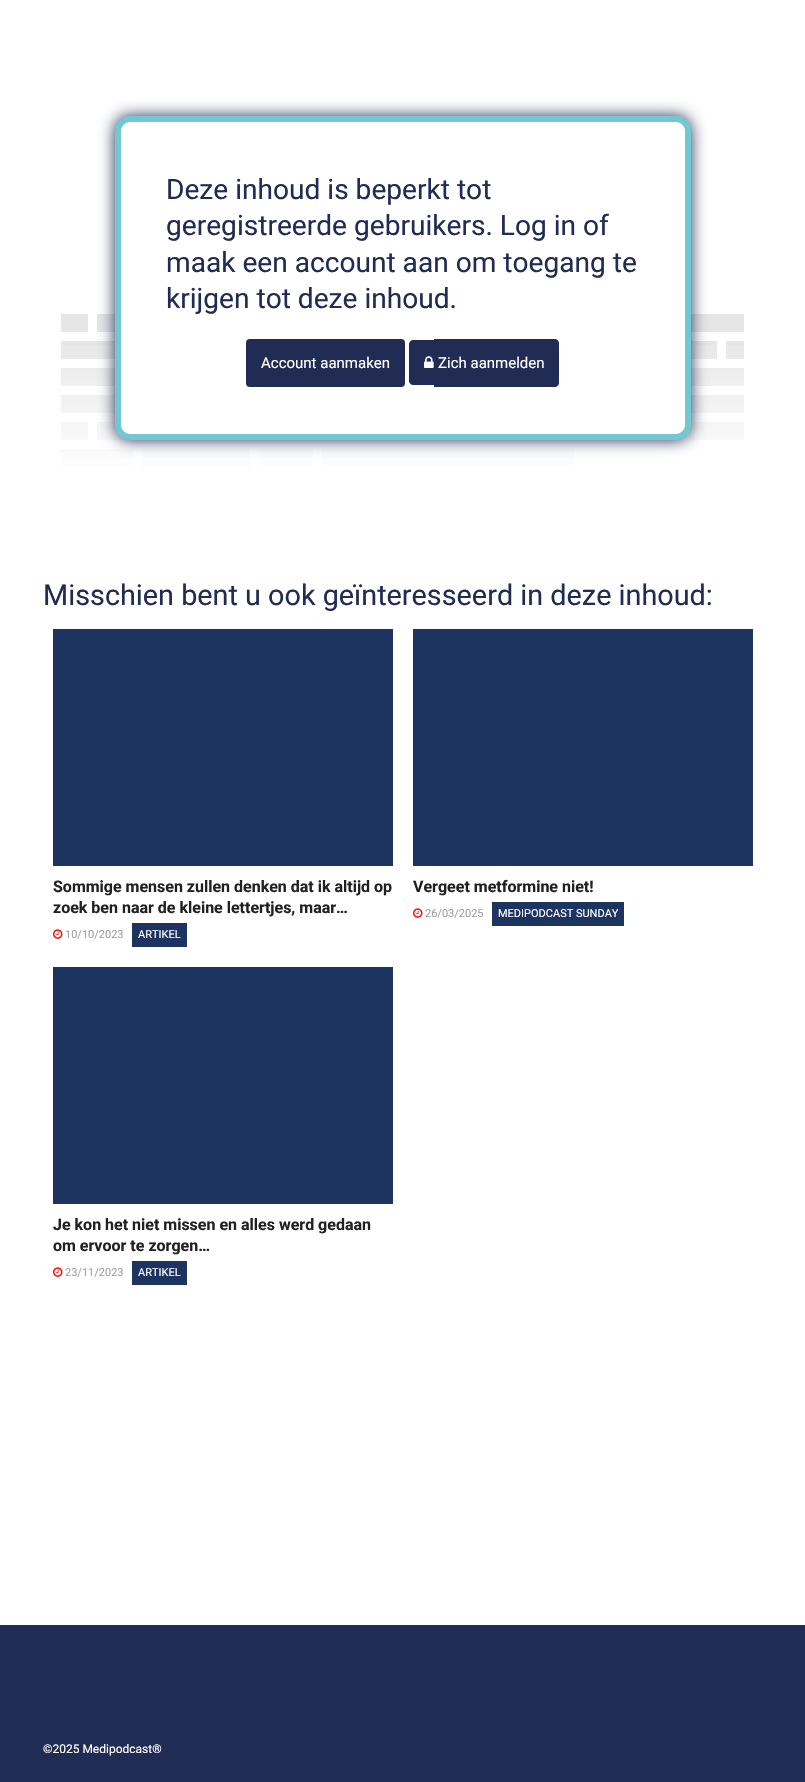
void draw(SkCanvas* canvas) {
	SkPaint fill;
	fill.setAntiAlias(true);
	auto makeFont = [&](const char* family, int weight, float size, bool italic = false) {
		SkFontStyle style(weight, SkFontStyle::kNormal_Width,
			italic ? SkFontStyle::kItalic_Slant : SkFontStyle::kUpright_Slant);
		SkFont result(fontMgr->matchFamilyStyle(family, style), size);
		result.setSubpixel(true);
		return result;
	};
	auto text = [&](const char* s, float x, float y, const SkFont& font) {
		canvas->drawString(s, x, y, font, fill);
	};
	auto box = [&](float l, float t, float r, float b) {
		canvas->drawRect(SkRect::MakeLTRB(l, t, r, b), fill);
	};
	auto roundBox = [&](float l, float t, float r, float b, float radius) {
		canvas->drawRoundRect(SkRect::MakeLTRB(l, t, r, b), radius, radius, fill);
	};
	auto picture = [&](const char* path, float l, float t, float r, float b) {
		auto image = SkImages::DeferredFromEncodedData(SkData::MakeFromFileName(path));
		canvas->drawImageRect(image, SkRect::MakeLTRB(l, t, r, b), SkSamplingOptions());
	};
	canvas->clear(0xFFFFFFFF);
	fill.setColor(0xFFE6E6E6);
	box(97, 314, 115, 332);
	box(691, 314, 744, 332);
	box(61, 341, 115, 359);
	box(691, 341, 717, 359);
	box(726, 341, 744, 359);
	box(61, 368, 115, 386);
	box(691, 368, 744, 386);
	box(61, 395, 115, 413);
	box(691, 395, 744, 413);
	box(61, 422, 88, 440);
	box(97, 422, 130, 440);
	box(689, 422, 744, 440);
	box(61, 449, 133, 467);
	box(142, 449, 250, 467);
	box(259, 449, 313, 467);
	box(322, 449, 574, 467);
	{
		const SkColor colors[] = {0x00FFFFFF, 0xE6FFFFFF};
		const float stops[] = {0, 1};
		const SkPoint ends[] = {{403, 329}, {403, 467}};
		fill.setShader(SkGradientShader::MakeLinear(ends, colors, stops, 2, SkTileMode::kClamp));
		fill.setAlpha(255);
	}
	box(61, 345, 744, 467);
	fill.setShader(nullptr);
	fill.setColor(0xFF202C54);
	fill.setMaskFilter(SkMaskFilter::MakeBlur(kNormal_SkBlurStyle, 8));
	canvas->drawRoundRect(SkRect::MakeLTRB(115, 116, 691, 440), 15, 15, fill);
	fill.setMaskFilter(nullptr);
	fill.setColor(0xFFFFFFFF);
	canvas->drawRoundRect(SkRect::MakeLTRB(118, 119, 688, 437), 12, 12, fill);
	fill.setStyle(SkPaint::kStroke_Style);
	fill.setStrokeWidth(6);
	fill.setColor(0xFF73C7D2);
	canvas->drawRoundRect(SkRect::MakeLTRB(118, 119, 688, 437), 12, 12, fill);
	fill.setStyle(SkPaint::kFill_Style);
	fill.setColor(0xFF212C54);
	roundBox(246, 339, 405, 387, 4);
	canvas->drawPath(SkPathBuilder().moveTo(413, 340).lineTo(434, 340).lineTo(434, 385).lineTo(413, 385).cubicTo(411, 385, 409, 383, 409, 381).lineTo(409, 344).cubicTo(409, 342, 411, 340, 413, 340).close().detach(), fill);
	canvas->drawPath(SkPathBuilder().moveTo(434, 339).lineTo(555, 339).cubicTo(557, 339, 559, 341, 559, 343).lineTo(559, 383).cubicTo(559, 385, 557, 387, 555, 387).lineTo(434, 387).close().detach(), fill);
	picture("image0.png", 424, 356, 434, 368);
	fill.setColor(0xFFE6E6E6);
	box(61, 314, 88, 332);
	fill.setColor(0xFF1D3461);
	box(53, 629, 393, 866);
	picture("image1.png", 53, 929, 63, 939);
	box(132, 923, 187, 947);
	box(413, 629, 753, 866);
	picture("image1.png", 413, 908, 423, 918);
	box(492, 902, 624, 926);
	box(53, 967, 393, 1204);
	picture("image1.png", 53, 1267, 63, 1277);
	box(132, 1261, 187, 1285);
	fill.setColor(0xFF202C54);
	box(0, 1625, 805, 1782);
	auto font1 = makeFont("Roboto", 400, 28.1f);
	text("Deze inhoud is beperkt tot", 166, 199, font1);
	text("geregistreerde gebruikers. Log in of", 166, 235, font1);
	text("maak een account aan om toegang te", 166, 272, font1);
	text("krijgen tot deze inhoud.", 166, 308, font1);
	auto font2 = makeFont("Roboto", 400, 15);
	fill.setColor(0xFFFFFFFF);
	text("Account aanmaken", 261, 368, font2);
	text("Zich aanmelden", 438, 368, font2);
	auto font3 = makeFont("Roboto", 400, 28.8f);
	fill.setColor(0xFF202C54);
	text("Misschien bent u ook geïnteresseerd in deze inhoud:", 43, 605, font3);
	auto font4 = makeFont("Roboto", 700, 16);
	fill.setColor(0xFF212121);
	text("Sommige mensen zullen denken dat ik altijd op", 53, 892, font4);
	text("zoek ben naar de kleine lettertjes, maar…", 53, 913, font4);
	auto font5 = makeFont("Roboto", 400, 11);
	fill.setColor(0xFFA0A0A0);
	text("10/10/2023", 65, 938, font5);
	fill.setColor(0xFFFFFFFF);
	text("ARTIKEL", 138, 938, font5);
	fill.setColor(0xFF212121);
	text("Vergeet metformine niet!", 413, 892, font4);
	fill.setColor(0xFFA0A0A0);
	text("26/03/2025", 425, 917, font5);
	fill.setColor(0xFFFFFFFF);
	text("MEDIPODCAST SUNDAY", 498, 917, font5);
	fill.setColor(0xFF212121);
	text("Je kon het niet missen en alles werd gedaan", 53, 1230, font4);
	text("om ervoor te zorgen…", 53, 1251, font4);
	fill.setColor(0xFFA0A0A0);
	text("23/11/2023", 65, 1276, font5);
	fill.setColor(0xFFFFFFFF);
	text("ARTIKEL", 138, 1276, font5);
	auto font6 = makeFont("Roboto", 400, 12);
	text("©2025 Medipodcast®", 43, 1753, font6);
}
